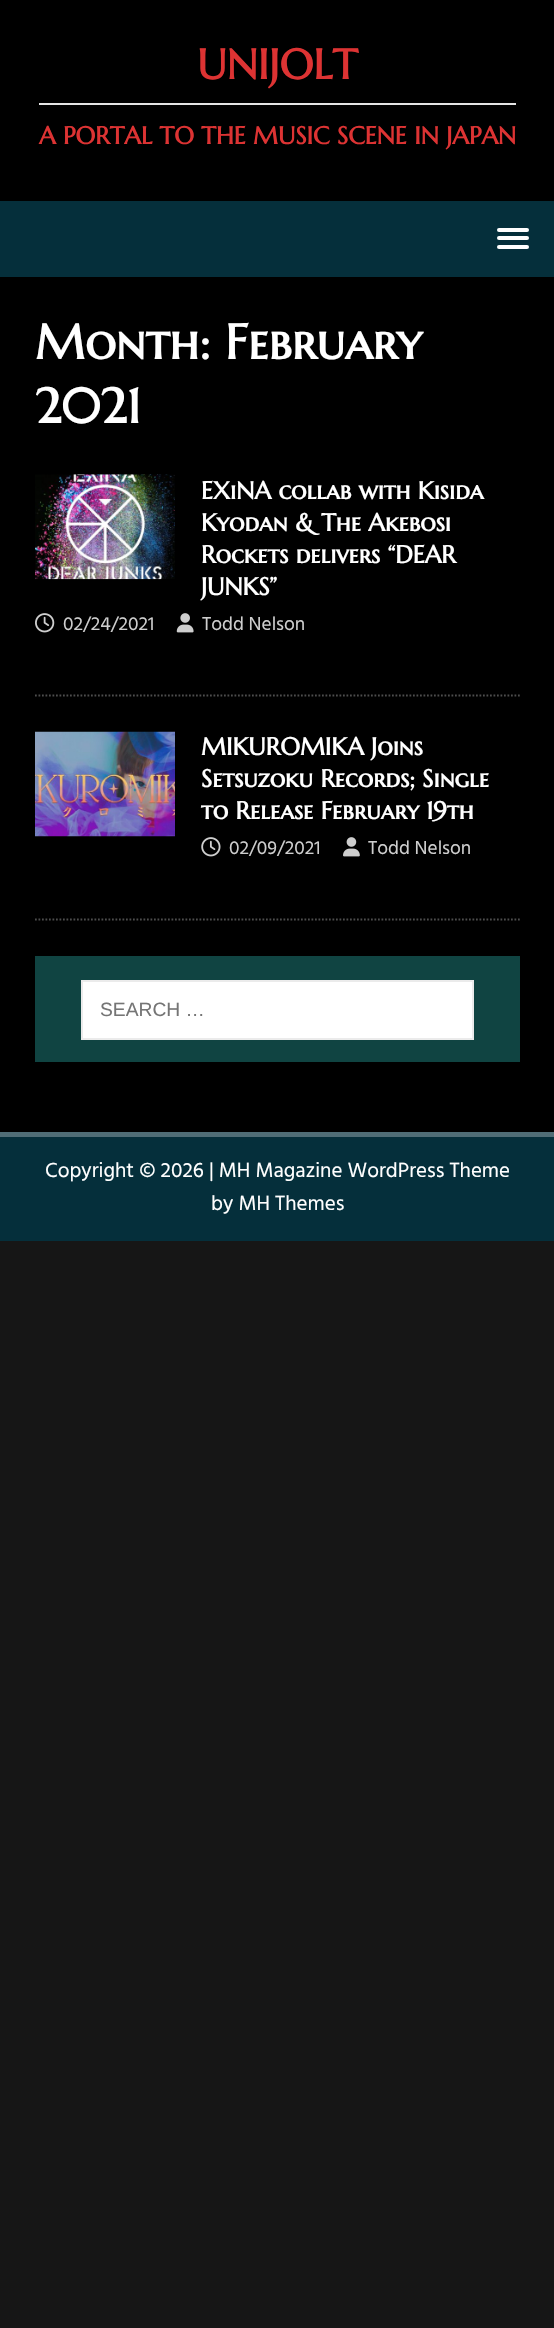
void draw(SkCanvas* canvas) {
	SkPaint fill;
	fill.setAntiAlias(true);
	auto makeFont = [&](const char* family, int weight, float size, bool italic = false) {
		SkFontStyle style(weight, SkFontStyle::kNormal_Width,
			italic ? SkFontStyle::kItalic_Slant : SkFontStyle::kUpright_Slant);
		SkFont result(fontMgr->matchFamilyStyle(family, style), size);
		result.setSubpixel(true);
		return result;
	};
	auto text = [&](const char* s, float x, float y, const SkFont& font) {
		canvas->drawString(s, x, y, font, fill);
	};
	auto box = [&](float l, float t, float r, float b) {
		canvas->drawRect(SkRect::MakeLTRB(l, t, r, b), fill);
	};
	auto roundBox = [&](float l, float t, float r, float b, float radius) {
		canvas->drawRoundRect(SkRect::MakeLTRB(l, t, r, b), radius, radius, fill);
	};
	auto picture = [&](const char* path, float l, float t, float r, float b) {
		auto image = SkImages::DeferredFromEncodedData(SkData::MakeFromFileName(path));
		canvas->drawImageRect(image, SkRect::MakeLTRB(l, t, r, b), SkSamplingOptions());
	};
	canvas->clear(0xFF161616);
	fill.setColor(0xFF000000);
	box(0, 0, 554, 201);
	fill.setColor(0xFFE5E5E5);
	box(39, 103, 516, 105);
	fill.setColor(0xFF052F3B);
	box(0, 201, 554, 277);
	fill.setColor(0xFFFFFFFF);
	roundBox(497, 228, 529, 232, 2);
	roundBox(497, 236, 529, 240, 2);
	roundBox(497, 245, 529, 249, 2);
	fill.setColor(0xFF000000);
	box(0, 277, 554, 1132);
	fill.setStyle(SkPaint::kStroke_Style);
	fill.setStrokeWidth(1.8f);
	fill.setColor(0xFF4D4D4D);
	fill.setPathEffect(SkDashPathEffect::Make({{1.75f, 1.75f}}, 0));
	canvas->drawPath(SkPathBuilder().moveTo(35, 695.5f).lineTo(520, 695.5f).detach(), fill);
	fill.setPathEffect(nullptr);
	picture("image0.png", 35, 474, 175, 580);
	picture("image1.png", 35, 613, 55, 633);
	picture("image2.png", 176, 613, 194, 633);
	fill.setPathEffect(SkDashPathEffect::Make({{1.75f, 1.75f}}, 0));
	canvas->drawPath(SkPathBuilder().moveTo(35, 919.5f).lineTo(520, 919.5f).detach(), fill);
	fill.setPathEffect(nullptr);
	picture("image3.png", 35, 731, 175, 837);
	picture("image4.png", 201, 837, 221, 857);
	picture("image5.png", 343, 837, 360, 857);
	fill.setStyle(SkPaint::kFill_Style);
	fill.setColor(0xFF104442);
	box(35, 956, 520, 1062);
	fill.setColor(0xFFFFFFFF);
	canvas->drawRect(SkRect::MakeLTRB(82, 981, 473, 1039), fill);
	fill.setStyle(SkPaint::kStroke_Style);
	fill.setStrokeWidth(2);
	fill.setColor(0xFFEBEBEB);
	canvas->drawRect(SkRect::MakeLTRB(82, 981, 473, 1039), fill);
	fill.setStyle(SkPaint::kFill_Style);
	fill.setColor(0xFF052F3B);
	box(0, 1137, 554, 1241);
	fill.setColor(0xFF506D76);
	box(0, 1132, 554, 1137);
	auto font1 = makeFont("Marcellus SC", 700, 42);
	fill.setColor(0xFFDD3333);
	text("UNIJOLT", 197, 79, font1);
	auto font2 = makeFont("Marcellus SC", 700, 24.5f);
	text("A PORTAL TO THE MUSIC SCENE IN JAPAN", 39, 144, font2);
	auto font3 = makeFont("Marcellus SC", 700, 49);
	fill.setColor(0xFFFFFFFF);
	text("Month: February", 35, 359, font3);
	text("2021", 35, 423, font3);
	text("EXiNA collab with Kisida", 201, 499, font2);
	text("Kyodan & The Akebosi", 201, 531, font2);
	text("Rockets delivers “DEAR", 201, 563, font2);
	text("JUNKS”", 201, 595, font2);
	auto font4 = makeFont("Hind", 400, 19.25f);
	fill.setColor(0xFFCECECE);
	text("02/24/2021", 63, 630, font4);
	text("Todd Nelson", 202, 630, font4);
	fill.setColor(0xFFFFFFFF);
	text("MIKUROMIKA Joins", 201, 755, font2);
	text("Setsuzoku Records; Single", 201, 787, font2);
	text("to Release February 19th", 201, 819, font2);
	fill.setColor(0xFFCECECE);
	text("02/09/2021", 229, 854, font4);
	text("Todd Nelson", 368, 854, font4);
	auto font5 = makeFont("Liberation Sans", 400, 19.25f);
	fill.setColor(0xFF757575);
	text("SEARCH …", 100, 1016, font5);
	auto font6 = makeFont("Hind", 400, 21);
	fill.setColor(0xFFFFFFFF);
	text("Copyright © 2026 | MH Magazine WordPress Theme", 45, 1177, font6);
	text("by MH Themes", 211, 1210, font6);
}
